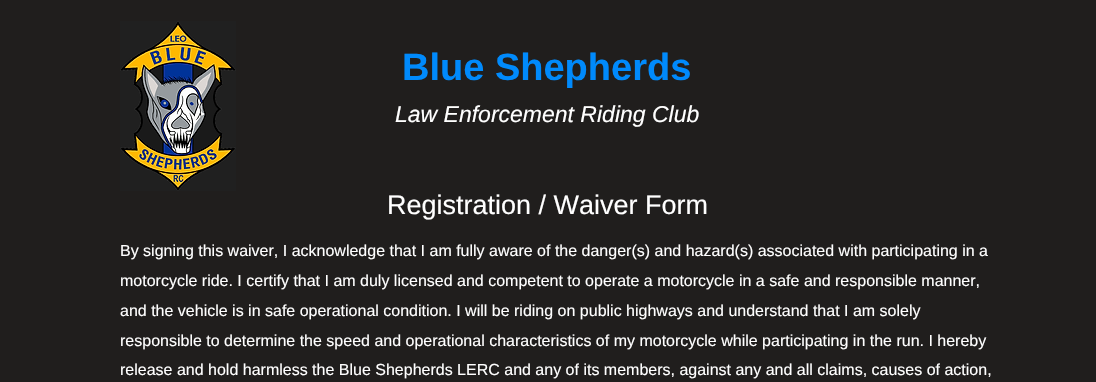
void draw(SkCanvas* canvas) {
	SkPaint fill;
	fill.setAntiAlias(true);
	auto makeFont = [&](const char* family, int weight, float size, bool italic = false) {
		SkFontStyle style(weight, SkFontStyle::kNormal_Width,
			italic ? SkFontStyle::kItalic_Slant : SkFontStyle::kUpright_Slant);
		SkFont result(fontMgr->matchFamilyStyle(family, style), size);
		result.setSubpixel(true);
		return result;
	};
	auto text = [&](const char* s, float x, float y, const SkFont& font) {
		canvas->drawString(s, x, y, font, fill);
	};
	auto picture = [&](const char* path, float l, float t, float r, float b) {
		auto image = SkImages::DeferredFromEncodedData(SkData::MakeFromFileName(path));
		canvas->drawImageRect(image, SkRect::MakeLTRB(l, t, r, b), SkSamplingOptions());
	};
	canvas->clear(0xFF201E1D);
	picture("image0.png", 120, 21, 236, 191);
	auto font1 = makeFont("Liberation Sans", 700, 38);
	fill.setColor(0xFF008AFC);
	text("Blue Shepherds", 402, 80, font1);
	auto font2 = makeFont("Liberation Sans", 400, 23, true);
	fill.setColor(0xFFFFFFFF);
	text("Law Enforcement Riding Club", 395, 122, font2);
	auto font3 = makeFont("Liberation Sans", 400, 27);
	text("Registration / Waiver Form", 387, 214, font3);
	auto font4 = makeFont("Liberation Sans", 400, 16);
	text("By signing this waiver, I acknowledge that I am fully aware of the danger(s) and hazard(s) associated with participating in a", 120, 256, font4);
	text("motorcycle ride. I certify that I am duly licensed and competent to operate a motorcycle in a safe and responsible manner,", 120, 286, font4);
	text("and the vehicle is in safe operational condition. I will be riding on public highways and understand that I am solely", 120, 316, font4);
	text("responsible to determine the speed and operational characteristics of my motorcycle while participating in the run. I hereby", 120, 346, font4);
	text("release and hold harmless the Blue Shepherds LERC and any of its members, against any and all claims, causes of action,", 120, 375, font4);
}
